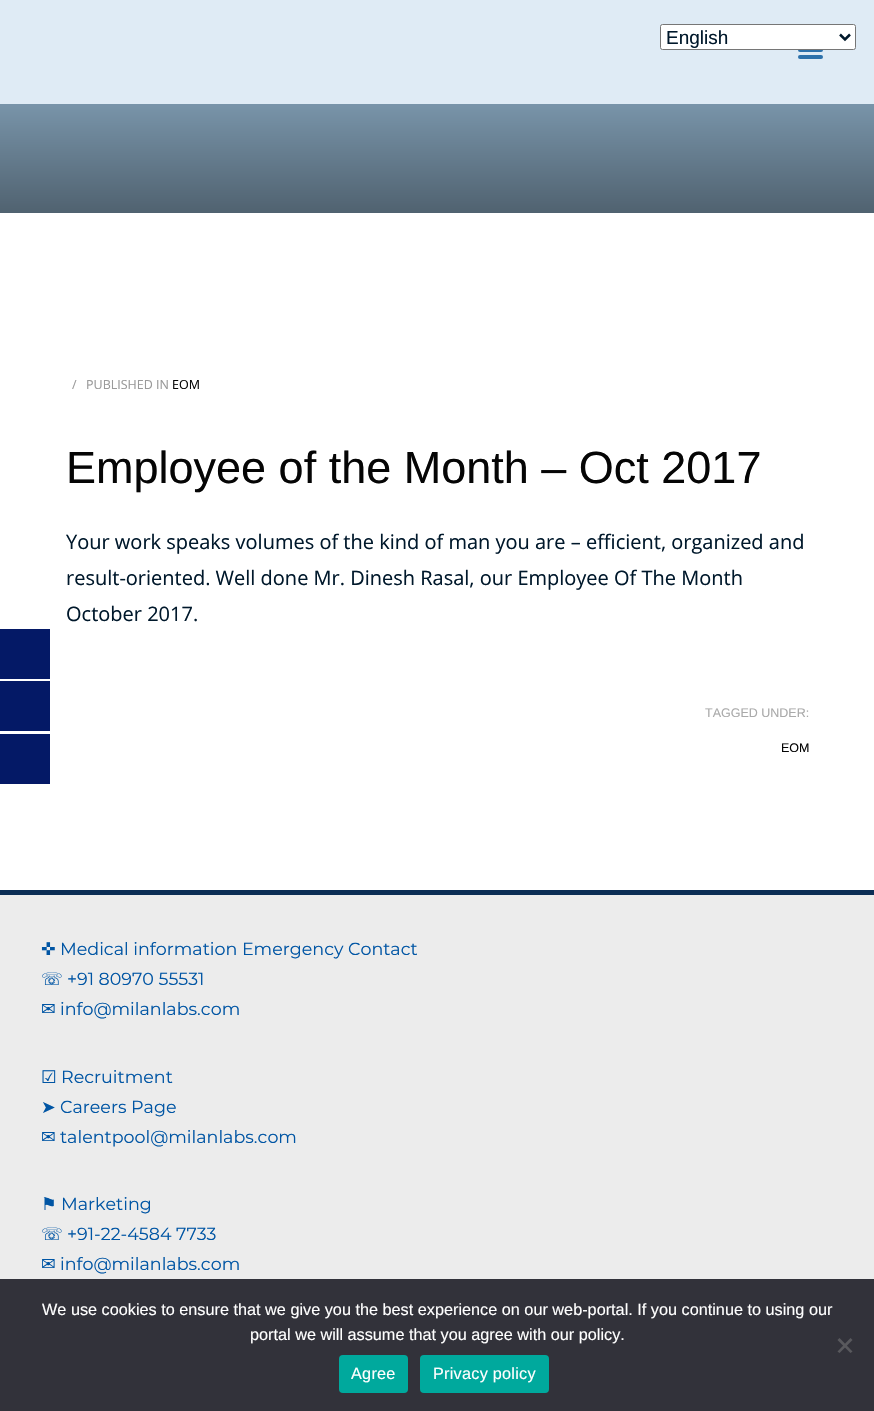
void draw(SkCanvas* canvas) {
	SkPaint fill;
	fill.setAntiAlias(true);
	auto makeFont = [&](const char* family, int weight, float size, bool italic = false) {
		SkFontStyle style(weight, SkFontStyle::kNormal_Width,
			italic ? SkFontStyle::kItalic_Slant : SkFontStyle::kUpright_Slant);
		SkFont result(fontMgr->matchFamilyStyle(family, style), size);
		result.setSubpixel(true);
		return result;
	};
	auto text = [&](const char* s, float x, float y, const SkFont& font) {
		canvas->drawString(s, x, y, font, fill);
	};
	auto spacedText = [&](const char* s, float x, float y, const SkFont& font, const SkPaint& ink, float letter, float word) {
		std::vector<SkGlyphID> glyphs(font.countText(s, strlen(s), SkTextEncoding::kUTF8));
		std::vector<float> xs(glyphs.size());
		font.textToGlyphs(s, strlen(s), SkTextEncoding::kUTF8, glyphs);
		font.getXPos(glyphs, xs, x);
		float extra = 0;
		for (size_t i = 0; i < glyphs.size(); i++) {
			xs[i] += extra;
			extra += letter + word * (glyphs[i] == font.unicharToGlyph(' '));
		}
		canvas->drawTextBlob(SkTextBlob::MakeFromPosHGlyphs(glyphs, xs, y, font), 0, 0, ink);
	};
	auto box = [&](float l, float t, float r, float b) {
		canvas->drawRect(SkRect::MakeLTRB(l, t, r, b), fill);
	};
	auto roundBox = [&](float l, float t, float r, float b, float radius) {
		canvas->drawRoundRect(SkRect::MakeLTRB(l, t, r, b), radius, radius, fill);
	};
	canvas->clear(0xFFFFFFFF);
	fill.setColor(0xFFDFEBF5);
	box(0, 0, 874, 104);
	fill.setColor(0xFF2D71AB);
	roundBox(798, 48, 823, 52, 2);
	fill.setColor(0xFFFFFFFF);
	canvas->drawRoundRect(SkRect::MakeLTRB(660.5f, 24.5f, 855.5f, 49.5f), 2, 2, fill);
	fill.setStyle(SkPaint::kStroke_Style);
	fill.setStrokeWidth(1);
	fill.setColor(0xFF767676);
	canvas->drawRoundRect(SkRect::MakeLTRB(660.5f, 24.5f, 855.5f, 49.5f), 2, 2, fill);
	fill.setStrokeWidth(2.5f);
	fill.setColor(0xFF00182B);
	canvas->drawPath(SkPathBuilder().moveTo(840, 34.5f).lineTo(845, 39.5f).lineTo(850, 34.5f).detach(), fill);
	fill.setStyle(SkPaint::kFill_Style);
	fill.setColor(0xFF041966);
	box(0, 629, 50, 679);
	box(0, 681, 50, 731);
	box(0, 734, 50, 784);
	fill.setColor(0xFF2D71AB);
	roundBox(798, 55, 823, 59, 2);
	{
		const SkColor colors[] = {0xFF9FC4E0, 0xFF506270};
		const float stops[] = {0, 1};
		const SkPoint ends[] = {{438, 0}, {438, 213}};
		fill.setShader(SkGradientShader::MakeLinear(ends, colors, stops, 2, SkTileMode::kClamp));
		fill.setAlpha(255);
	}
	box(0, 104, 874, 213);
	fill.setShader(nullptr);
	fill.setColor(0xFFECECEC);
	box(0, 895, 874, 1279);
	fill.setColor(0xFF0B2E55);
	box(0, 890, 874, 895);
	fill.setColor(0xFF32323A);
	box(0, 1279, 874, 1411);
	fill.setColor(0xFF59595D);
	canvas->drawPath(SkPathBuilder().moveTo(850.5f, 1338).lineTo(852.5f, 1340).lineTo(839.5f, 1353).lineTo(837.5f, 1351.5f).close().detach(), fill);
	canvas->drawPath(SkPathBuilder().moveTo(837.5f, 1340).lineTo(839.5f, 1338).lineTo(852.5f, 1351.5f).lineTo(850.5f, 1353).close().detach(), fill);
	fill.setColor(0xFF00A99D);
	roundBox(339, 1355, 408, 1393, 4);
	roundBox(420, 1355, 549, 1393, 4);
	auto font1 = makeFont("Liberation Sans", 400, 19);
	fill.setColor(0xFF00182B);
	text("English", 666, 44, font1);
	auto font2 = makeFont("Open Sans", 400, 12.5f);
	fill.setColor(0xFF9A9A9A);
	text("/", 72, 389, font2);
	text("PUBLISHED IN", 86, 389, font2);
	fill.setColor(0xFF050505);
	text("EOM", 172, 389, font2);
	auto font3 = makeFont("Liberation Sans", 400, 45);
	text("Employee of the Month – Oct 2017", 66, 483, font3);
	auto font4 = makeFont("Open Sans", 400, 20);
	fill.setColor(0xFF00182B);
	text("Your work speaks volumes of the kind of man you are – efficient, organized and", 66, 549, font4);
	text("result-oriented. Well done Mr. Dinesh Rasal, our Employee Of The Month", 66, 585, font4);
	text("October 2017.", 66, 621, font4);
	auto font5 = makeFont("Liberation Sans", 400, 12.5f);
	fill.setColor(0xFFAAAAAA);
	text("TAGGED UNDER:", 705, 717, font5);
	fill.setColor(0xFF050505);
	text("EOM", 781, 752, font5);
	auto font6 = makeFont("DejaVu Sans", 400, 17.5f);
	fill.setColor(0xFF0055A4);
	text("✜", 41, 955, font6);
	auto font7 = makeFont("Montserrat", 400, 17.5f);
	text("Medical information Emergency Contact", 60, 955, font7);
	text("☏", 41, 985, font6);
	text("+91 80970 55531", 67, 985, font7);
	text("✉", 41, 1015, font6);
	text("info@milanlabs.com", 60, 1015, font7);
	text("☑", 41, 1083, font6);
	text("Recruitment", 61, 1083, font7);
	text("➤", 41, 1113, font6);
	text("Careers Page", 60, 1113, font7);
	text("✉", 41, 1143, font6);
	text("talentpool@milanlabs.com", 60, 1143, font7);
	text("⚑", 41, 1210, font6);
	text("Marketing", 61, 1210, font7);
	text("☏", 41, 1240, font6);
	text("+91-22-4584 7733", 67, 1240, font7);
	text("✉", 41, 1270, font6);
	text("info@milanlabs.com", 60, 1270, font7);
	auto font8 = makeFont("Liberation Sans", 400, 16.25f);
	fill.setColor(0xFFFFFFFF);
	text("We use cookies to ensure that we give you the best experience on our web-portal. If you continue to using our", 42, 1315, font8);
	text("portal we will assume that you agree with our policy.", 250, 1340, font8);
	spacedText("Agree", 351, 1379, font8, fill, 0.25f, 0);
	spacedText("Privacy policy", 433, 1379, font8, fill, 0.25f, 0);
}
